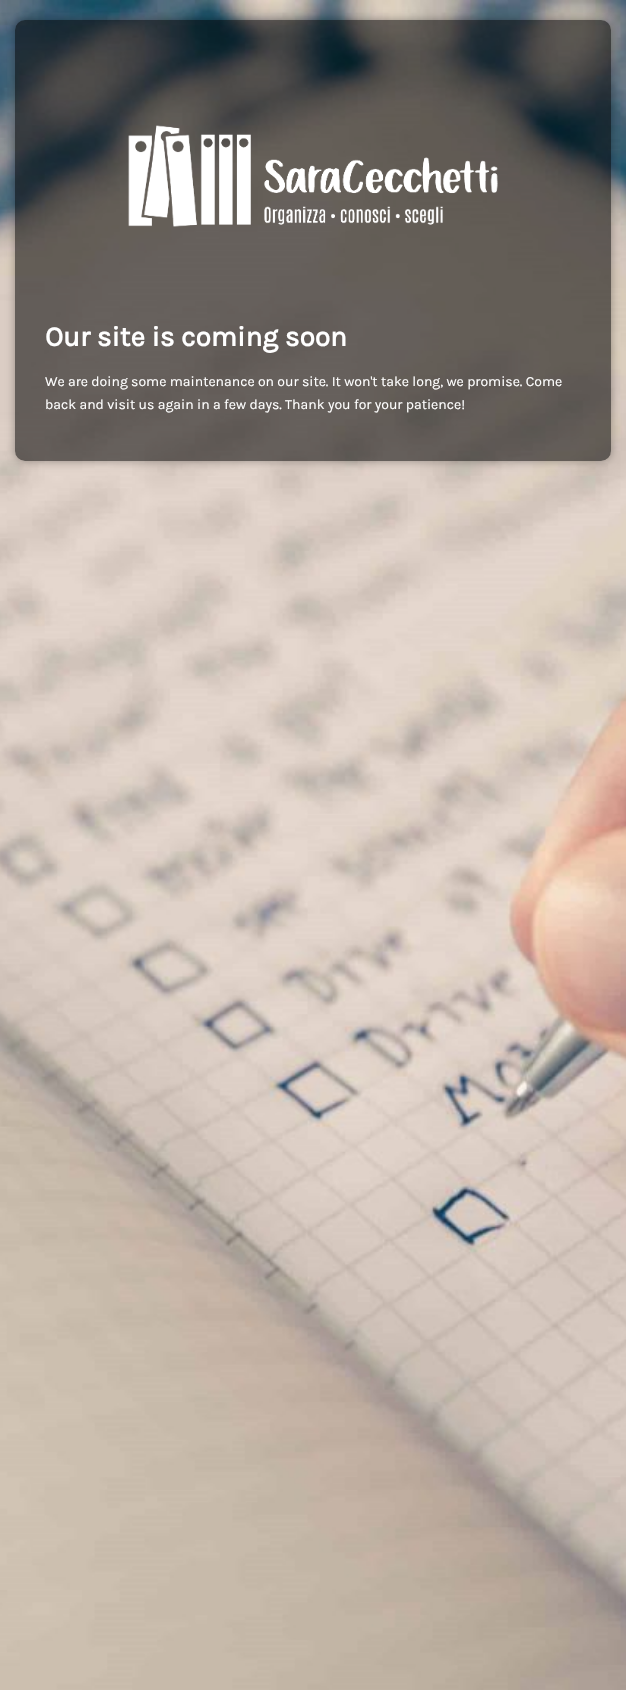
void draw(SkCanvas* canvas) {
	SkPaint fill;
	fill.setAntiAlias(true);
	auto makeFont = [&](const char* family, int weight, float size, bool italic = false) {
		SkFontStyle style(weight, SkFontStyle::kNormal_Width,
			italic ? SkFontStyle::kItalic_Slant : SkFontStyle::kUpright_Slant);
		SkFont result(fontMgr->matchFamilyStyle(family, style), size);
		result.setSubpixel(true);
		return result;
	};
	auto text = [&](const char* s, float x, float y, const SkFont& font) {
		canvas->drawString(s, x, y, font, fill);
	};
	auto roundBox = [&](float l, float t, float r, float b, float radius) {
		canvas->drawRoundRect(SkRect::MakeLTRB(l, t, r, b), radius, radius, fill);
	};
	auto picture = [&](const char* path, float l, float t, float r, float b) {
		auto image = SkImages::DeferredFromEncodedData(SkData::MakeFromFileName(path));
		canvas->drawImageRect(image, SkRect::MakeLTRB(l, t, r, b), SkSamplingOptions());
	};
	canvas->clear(0xFFFFFFFF);
	picture("image0.png", 0, 0, 626, 1690);
	canvas->save();
	canvas->clipPath(SkPathBuilder(SkPathFillType::kEvenOdd).moveTo(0, 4).lineTo(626, 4).lineTo(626, 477).lineTo(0, 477).close().moveTo(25, 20).lineTo(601, 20).cubicTo(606.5f, 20, 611, 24.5f, 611, 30).lineTo(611, 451).cubicTo(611, 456.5f, 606.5f, 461, 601, 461).lineTo(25, 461).cubicTo(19.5f, 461, 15, 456.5f, 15, 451).lineTo(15, 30).cubicTo(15, 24.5f, 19.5f, 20, 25, 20).close().detach(), true);
	fill.setColor(0x54000000);
	fill.setMaskFilter(SkMaskFilter::MakeBlur(kNormal_SkBlurStyle, 5));
	canvas->drawRoundRect(SkRect::MakeLTRB(15, 20, 611, 461), 10, 10, fill);
	fill.setMaskFilter(nullptr);
	canvas->restore();
	fill.setColor(0x8C000000);
	roundBox(15, 20, 611, 461, 10);
	picture("image1.png", 128, 125, 498, 227);
	auto font1 = makeFont("Karla", 700, 28);
	fill.setColor(0xFFFFFFFF);
	text("Our site is coming soon", 45, 346, font1);
	auto font2 = makeFont("Karla", 400, 14);
	text("We are doing some maintenance on our site. It won't take long, we promise. Come", 45, 386, font2);
	text("back and visit us again in a few days. Thank you for your patience!", 45, 409, font2);
}
